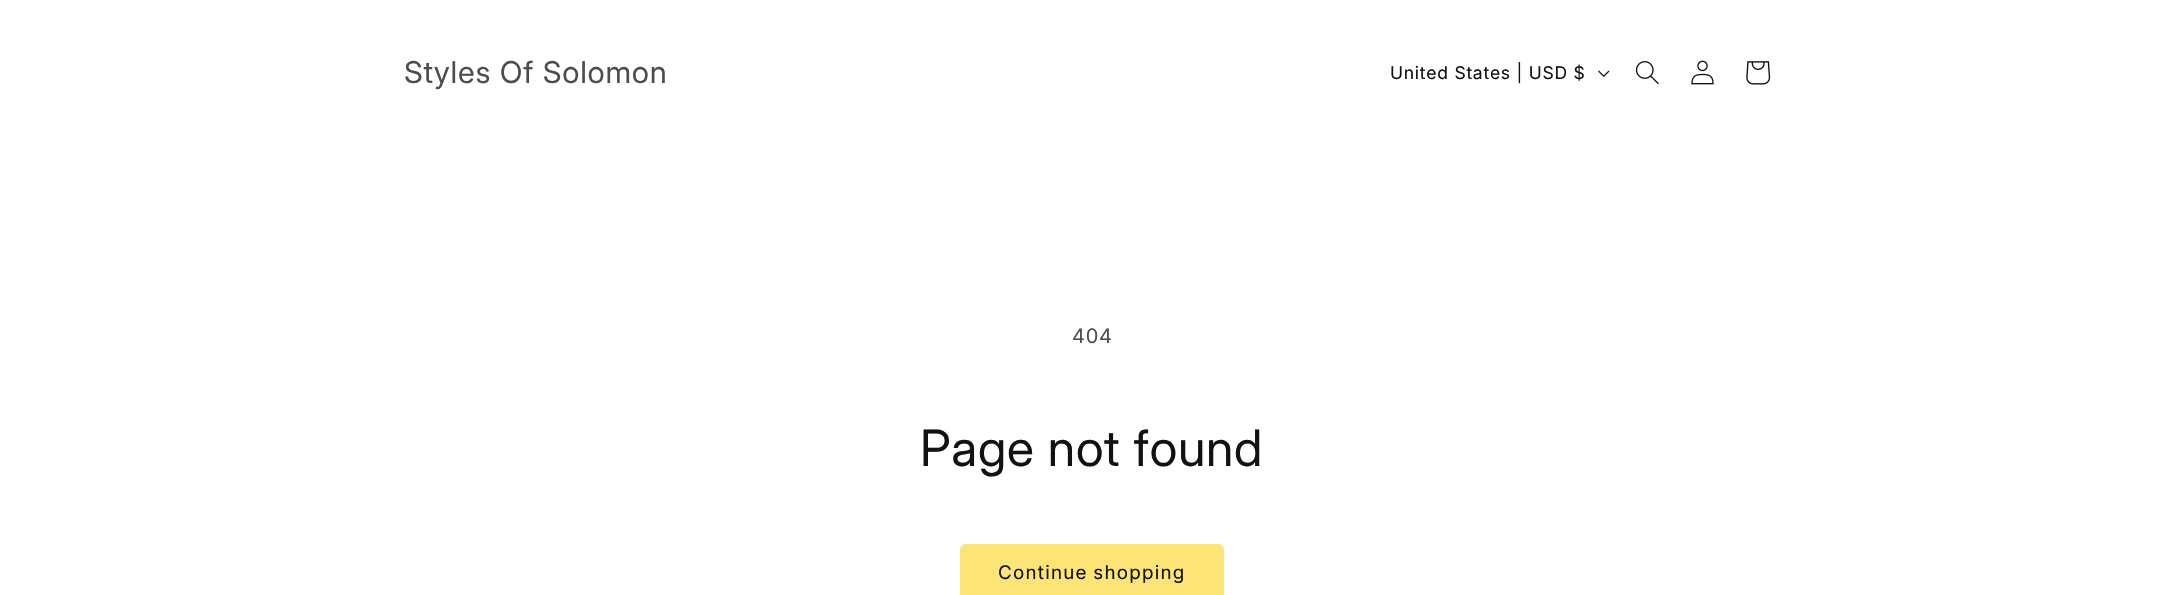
void draw(SkCanvas* canvas) {
	SkPaint fill;
	fill.setAntiAlias(true);
	auto makeFont = [&](const char* family, int weight, float size, bool italic = false) {
		SkFontStyle style(weight, SkFontStyle::kNormal_Width,
			italic ? SkFontStyle::kItalic_Slant : SkFontStyle::kUpright_Slant);
		SkFont result(fontMgr->matchFamilyStyle(family, style), size);
		result.setSubpixel(true);
		return result;
	};
	auto spacedText = [&](const char* s, float x, float y, const SkFont& font, const SkPaint& ink, float letter, float word) {
		std::vector<SkGlyphID> glyphs(font.countText(s, strlen(s), SkTextEncoding::kUTF8));
		std::vector<float> xs(glyphs.size());
		font.textToGlyphs(s, strlen(s), SkTextEncoding::kUTF8, glyphs);
		font.getXPos(glyphs, xs, x);
		float extra = 0;
		for (size_t i = 0; i < glyphs.size(); i++) {
			xs[i] += extra;
			extra += letter + word * (glyphs[i] == font.unicharToGlyph(' '));
		}
		canvas->drawTextBlob(SkTextBlob::MakeFromPosHGlyphs(glyphs, xs, y, font), 0, 0, ink);
	};
	auto roundBox = [&](float l, float t, float r, float b, float radius) {
		canvas->drawRoundRect(SkRect::MakeLTRB(l, t, r, b), radius, radius, fill);
	};
	auto picture = [&](const char* path, float l, float t, float r, float b) {
		auto image = SkImages::DeferredFromEncodedData(SkData::MakeFromFileName(path));
		canvas->drawImageRect(image, SkRect::MakeLTRB(l, t, r, b), SkSamplingOptions());
	};
	canvas->clear(0xFFFFFFFF);
	picture("image0.png", 1598, 70, 1610, 77);
	picture("image1.png", 1635, 61, 1659, 85);
	picture("image2.png", 1691, 60, 1714, 85);
	picture("image3.png", 1746, 61, 1771, 85);
	fill.setColor(0xFFFCE477);
	roundBox(960, 544, 1224, 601, 6);
	fill.setStyle(SkPaint::kStroke_Style);
	fill.setStrokeWidth(1);
	canvas->drawRoundRect(SkRect::MakeLTRB(960.5f, 544.5f, 1223.5f, 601.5f), 5.5f, 5.5f, fill);
	auto font1 = makeFont("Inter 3", 400, 30);
	fill.setStyle(SkPaint::kFill_Style);
	fill.setColor(0xFF4D4D4D);
	spacedText("Styles Of Solomon", 404, 83, font1, fill, 0.75f, 0);
	auto font2 = makeFont("Inter", 400, 17.5f);
	fill.setColor(0xFF121212);
	spacedText("United States | USD $", 1390, 79, font2, fill, 0.75f, 0);
	auto font3 = makeFont("Inter", 400, 20);
	fill.setColor(0xFF4D4D4D);
	spacedText("404", 1072, 343, font3, fill, 0.75f, 0);
	auto font4 = makeFont("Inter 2", 400, 50);
	fill.setColor(0xFF121212);
	spacedText("Page not found", 920, 466, font4, fill, 0.75f, 0);
	auto font5 = makeFont("Inter", 400, 18.75f);
	spacedText("Continue shopping", 998, 579, font5, fill, 1.25f, -1);
}
